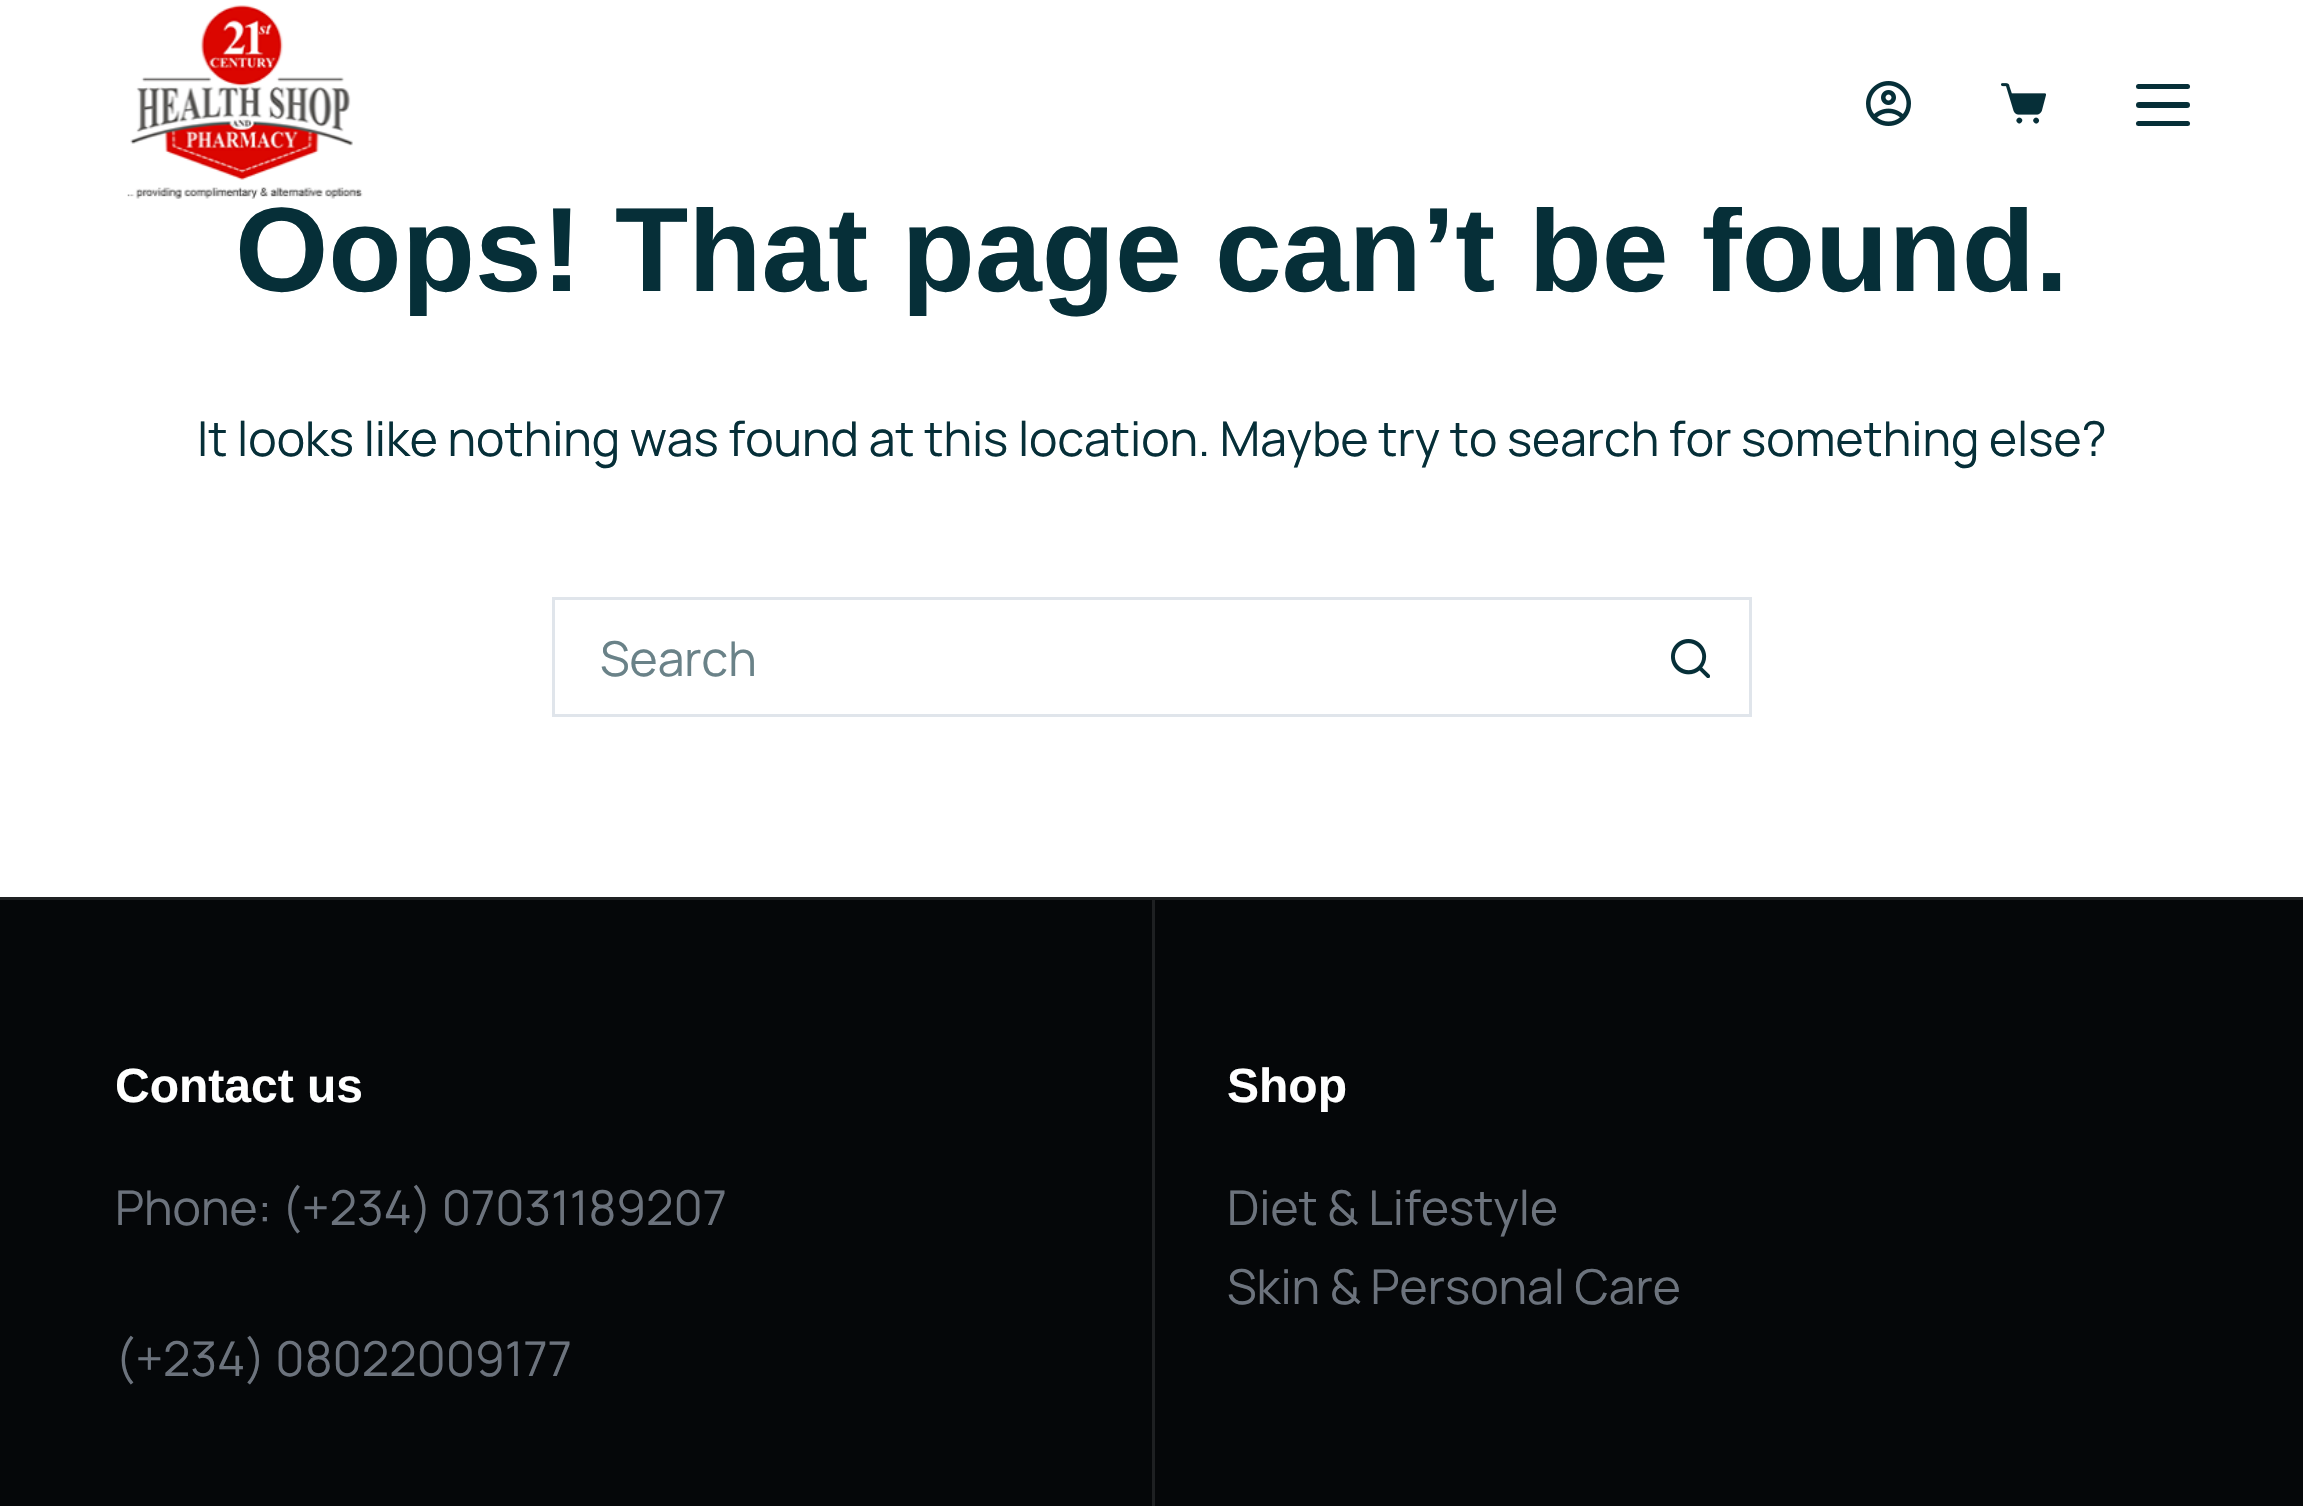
void draw(SkCanvas* canvas) {
	SkPaint fill;
	fill.setAntiAlias(true);
	auto makeFont = [&](const char* family, int weight, float size, bool italic = false) {
		SkFontStyle style(weight, SkFontStyle::kNormal_Width,
			italic ? SkFontStyle::kItalic_Slant : SkFontStyle::kUpright_Slant);
		SkFont result(fontMgr->matchFamilyStyle(family, style), size);
		result.setSubpixel(true);
		return result;
	};
	auto text = [&](const char* s, float x, float y, const SkFont& font) {
		canvas->drawString(s, x, y, font, fill);
	};
	auto box = [&](float l, float t, float r, float b) {
		canvas->drawRect(SkRect::MakeLTRB(l, t, r, b), fill);
	};
	auto roundBox = [&](float l, float t, float r, float b, float radius) {
		canvas->drawRoundRect(SkRect::MakeLTRB(l, t, r, b), radius, radius, fill);
	};
	auto picture = [&](const char* path, float l, float t, float r, float b) {
		auto image = SkImages::DeferredFromEncodedData(SkData::MakeFromFileName(path));
		canvas->drawImageRect(image, SkRect::MakeLTRB(l, t, r, b), SkSamplingOptions());
	};
	canvas->clear(0xFFFFFFFF);
	picture("image0.png", 127, 5, 363, 199);
	picture("image1.png", 1866, 81, 1911, 126);
	picture("image2.png", 2001, 83, 2046, 124);
	fill.setColor(0xFF062F38);
	roundBox(2136, 84, 2190, 89, 2.5f);
	roundBox(2136, 102, 2190, 108, 3);
	roundBox(2136, 121, 2190, 126, 2.5f);
	fill.setColor(0xFFE0E5EB);
	box(552, 597, 1752, 600);
	box(552, 714, 1632, 717);
	box(552, 597, 555, 717);
	box(1749, 597, 1752, 717);
	box(1632, 714, 1752, 717);
	picture("image3.png", 1671, 639, 1710, 678);
	fill.setColor(0xFF050709);
	box(0, 900, 2303, 1506);
	fill.setColor(0xFF1E2022);
	box(0, 897, 2303, 900);
	box(1152, 900, 1155, 1506);
	auto font1 = makeFont("Liberation Sans", 700, 120);
	fill.setColor(0xFF062F38);
	text("Oops! That page can’t be found.", 235, 291, font1);
	fill.setColor(0xFFFFFFFF);
	box(696, 204, 2027, 207);
	auto font2 = makeFont("Manrope", 400, 48);
	fill.setColor(0xFF062F38);
	text("It looks like nothing was found at this location. Maybe try to search for something else?", 197, 456, font2);
	fill.setColor(0xFF6A8288);
	text("Search", 600, 676, font2);
	auto font3 = makeFont("Liberation Sans", 700, 48);
	fill.setColor(0xFFFFFFFF);
	text("Contact us", 115, 1102, font3);
	fill.setColor(0xFF6C737D);
	text("Phone: (+234) 07031189207", 115, 1225, font2);
	text("(+234) 08022009177", 115, 1376, font2);
	fill.setColor(0xFFFFFFFF);
	text("Shop", 1227, 1102, font3);
	fill.setColor(0xFF6C737D);
	text("Diet & Lifestyle", 1227, 1225, font2);
	text("Skin & Personal Care", 1227, 1304, font2);
}
